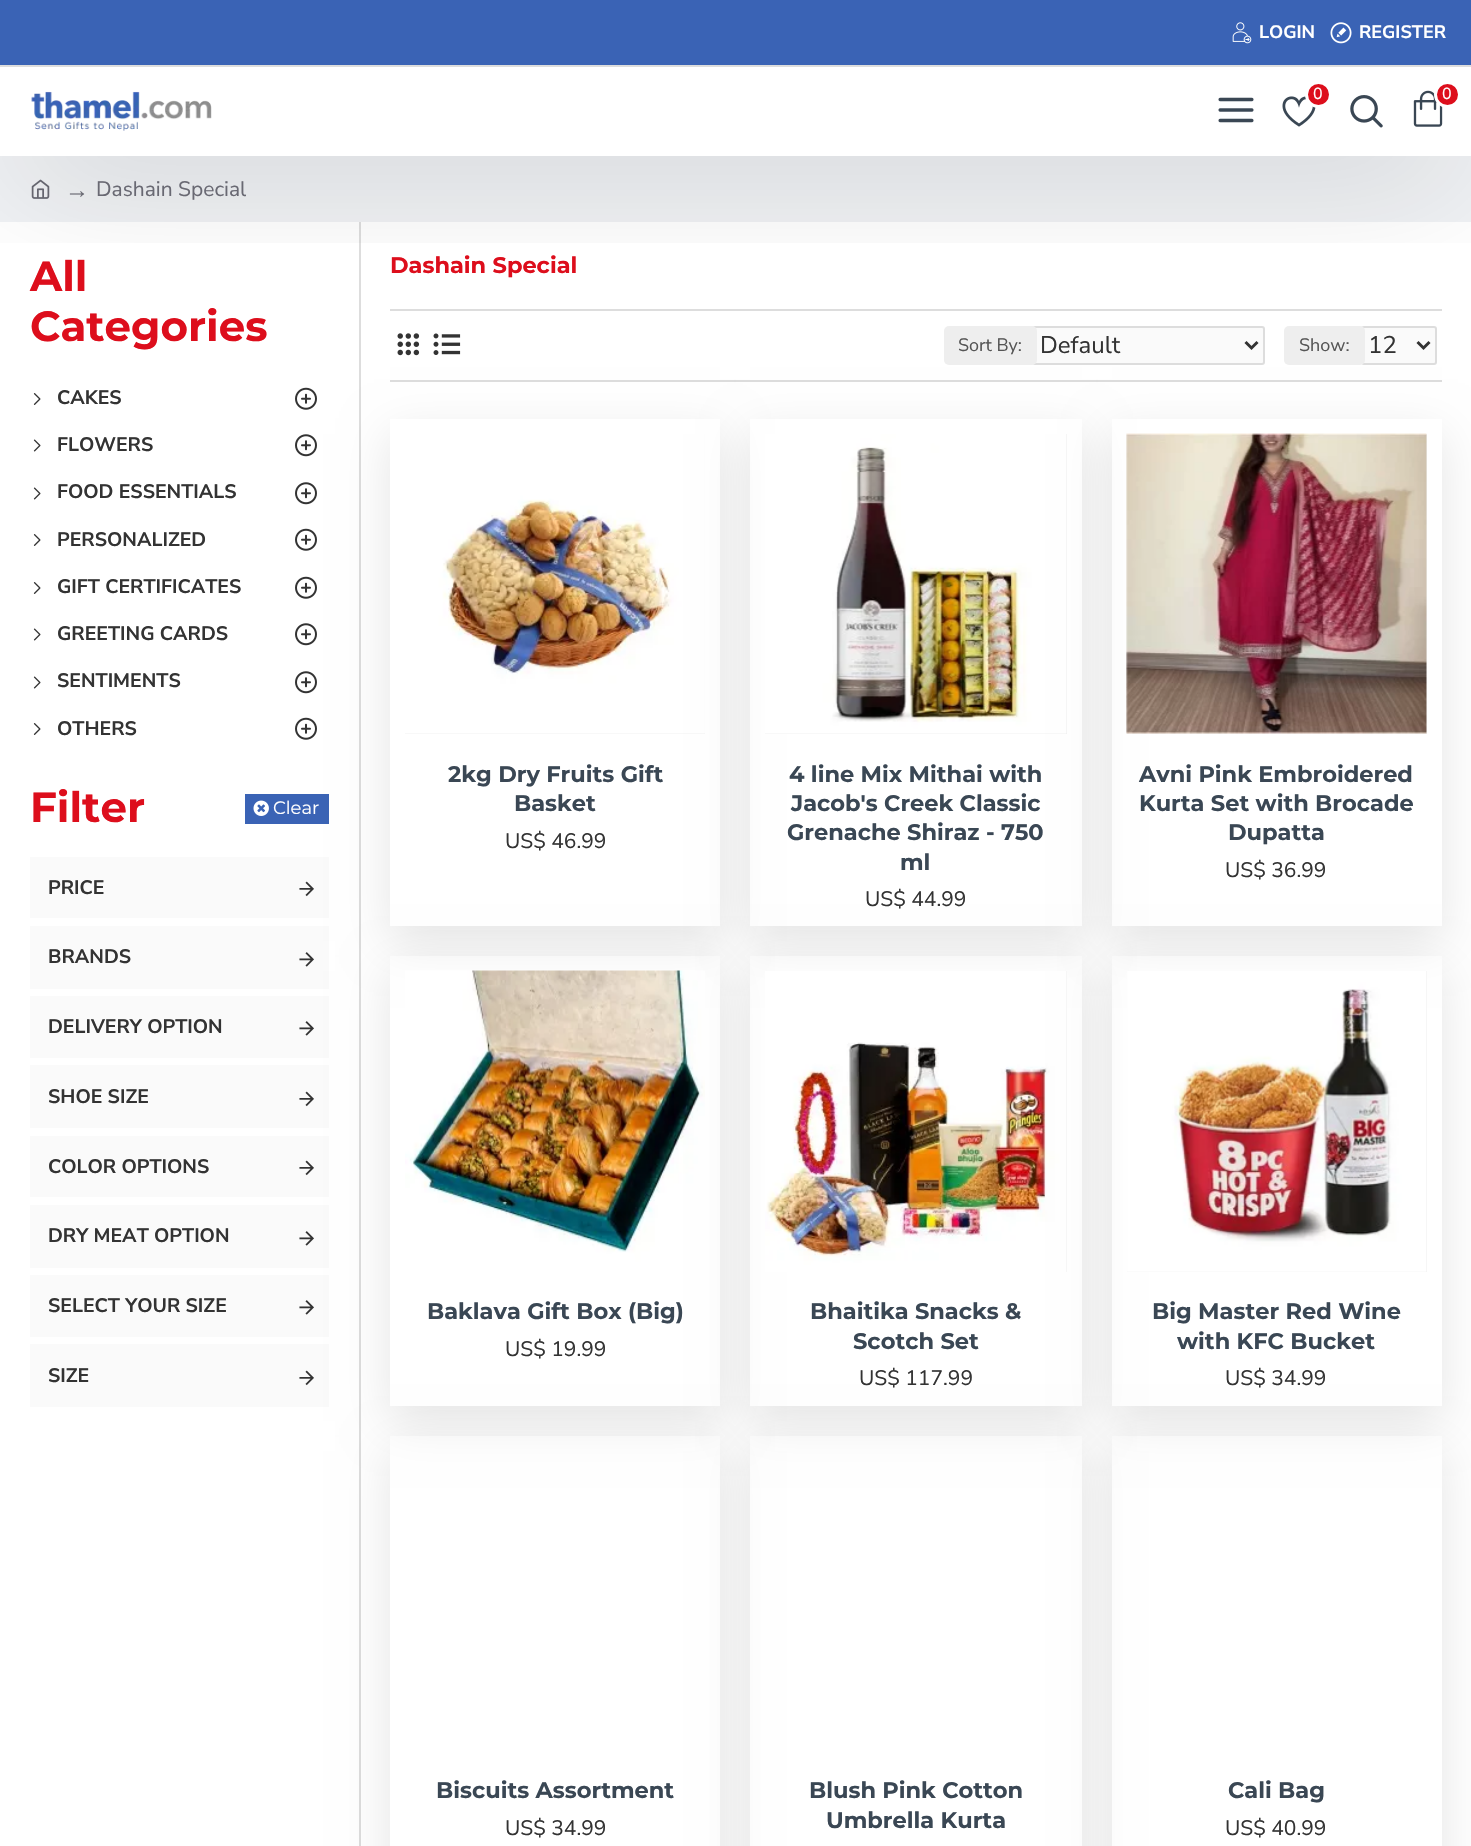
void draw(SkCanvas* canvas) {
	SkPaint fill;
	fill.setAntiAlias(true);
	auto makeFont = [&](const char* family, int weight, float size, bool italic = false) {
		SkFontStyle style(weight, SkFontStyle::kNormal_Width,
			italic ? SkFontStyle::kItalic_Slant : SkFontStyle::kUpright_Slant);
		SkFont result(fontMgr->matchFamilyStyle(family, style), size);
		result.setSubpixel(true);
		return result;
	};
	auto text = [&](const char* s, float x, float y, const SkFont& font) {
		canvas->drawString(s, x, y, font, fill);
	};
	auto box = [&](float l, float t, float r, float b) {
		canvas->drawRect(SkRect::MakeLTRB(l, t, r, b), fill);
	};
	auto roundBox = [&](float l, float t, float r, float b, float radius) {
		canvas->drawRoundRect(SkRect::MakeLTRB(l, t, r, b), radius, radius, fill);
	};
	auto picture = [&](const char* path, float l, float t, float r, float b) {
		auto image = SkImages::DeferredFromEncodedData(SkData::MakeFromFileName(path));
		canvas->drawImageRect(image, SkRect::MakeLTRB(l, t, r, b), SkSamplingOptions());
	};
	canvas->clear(0xFFFFFFFF);
	fill.setColor(0xFFF0F2F5);
	box(0, 156, 1471, 222);
	picture("image7.png", 31, 179, 50, 199);
	fill.setColor(0xFFDDDDDD);
	box(359, 222, 361, 1846);
	box(390, 309, 1442, 311);
	picture("image15.png", 397, 333, 420, 356);
	picture("image16.png", 433, 333, 461, 355);
	fill.setColor(0xFFFAFAFA);
	canvas->drawRoundRect(SkRect::MakeLTRB(1033, 327, 1264, 364), 2, 2, fill);
	fill.setStyle(SkPaint::kStroke_Style);
	fill.setStrokeWidth(2);
	fill.setColor(0xFFDDDDDD);
	canvas->drawRoundRect(SkRect::MakeLTRB(1033, 327, 1264, 364), 2, 2, fill);
	fill.setStyle(SkPaint::kFill_Style);
	fill.setColor(0xFFEEEEEE);
	roundBox(944, 326, 1037, 365, 5);
	fill.setStyle(SkPaint::kStroke_Style);
	fill.setStrokeWidth(3);
	fill.setColor(0xFF333333);
	canvas->drawPath(SkPathBuilder().moveTo(1245.5f, 342).lineTo(1251.5f, 348).lineTo(1257.5f, 342).detach(), fill);
	fill.setStyle(SkPaint::kFill_Style);
	fill.setColor(0xFFFAFAFA);
	canvas->drawRoundRect(SkRect::MakeLTRB(1362, 327, 1436, 364), 2, 2, fill);
	fill.setStyle(SkPaint::kStroke_Style);
	fill.setStrokeWidth(2);
	fill.setColor(0xFFDDDDDD);
	canvas->drawRoundRect(SkRect::MakeLTRB(1362, 327, 1436, 364), 2, 2, fill);
	fill.setStyle(SkPaint::kFill_Style);
	fill.setColor(0xFFEEEEEE);
	roundBox(1284, 326, 1365, 365, 5);
	fill.setStyle(SkPaint::kStroke_Style);
	fill.setStrokeWidth(3);
	fill.setColor(0xFF333333);
	canvas->drawPath(SkPathBuilder().moveTo(1417.5f, 342).lineTo(1423.5f, 348).lineTo(1429.5f, 342).detach(), fill);
	canvas->save();
	canvas->clipRect(SkRect::MakeLTRB(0, 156, 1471, 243));
	fill.setStyle(SkPaint::kFill_Style);
	fill.setColor(0x33000000);
	fill.setMaskFilter(SkMaskFilter::MakeBlur(kNormal_SkBlurStyle, 67.5f));
	canvas->drawRect(SkRect::MakeLTRB(15, 104, 1457, 164), fill);
	fill.setMaskFilter(nullptr);
	canvas->restore();
	fill.setColor(0xFF3A63B5);
	box(0, 0, 1471, 65);
	fill.setColor(0xFFDDDDDD);
	box(0, 65, 1471, 67);
	picture("image0.png", 1232, 22, 1252, 44);
	picture("image1.png", 1330, 22, 1352, 44);
	picture("image2.png", 31, 91, 212, 131);
	picture("image3.png", 1282, 96, 1316, 127);
	fill.setColor(0xFFDD0E1C);
	canvas->drawCircle(1318.5f, 94.5f, 12, fill);
	fill.setStyle(SkPaint::kStroke_Style);
	fill.setColor(0xFFFFFFFF);
	canvas->drawCircle(1318.5f, 94.5f, 12, fill);
	picture("image4.png", 1413, 90, 1443, 127);
	fill.setStyle(SkPaint::kFill_Style);
	fill.setColor(0xFFDD0E1C);
	canvas->drawCircle(1447.5f, 94.5f, 12, fill);
	fill.setStyle(SkPaint::kStroke_Style);
	fill.setColor(0xFFFFFFFF);
	canvas->drawCircle(1447.5f, 94.5f, 12, fill);
	picture("image5.png", 1218, 97, 1254, 123);
	picture("image6.png", 1350, 95, 1383, 128);
	picture("image8.png", 33, 393, 41, 405);
	picture("image9.png", 295, 387, 317, 410);
	picture("image10.png", 33, 439, 41, 452);
	picture("image11.png", 295, 434, 317, 457);
	picture("image10.png", 33, 487, 41, 500);
	picture("image11.png", 295, 482, 317, 505);
	picture("image8.png", 33, 534, 41, 546);
	picture("image9.png", 295, 528, 317, 551);
	picture("image8.png", 33, 582, 41, 594);
	picture("image9.png", 295, 576, 317, 599);
	picture("image10.png", 33, 628, 41, 641);
	picture("image11.png", 295, 623, 317, 646);
	picture("image10.png", 33, 676, 41, 689);
	picture("image11.png", 295, 671, 317, 694);
	picture("image8.png", 33, 723, 41, 735);
	picture("image9.png", 295, 717, 317, 740);
	fill.setStyle(SkPaint::kFill_Style);
	fill.setColor(0xFF3A63B5);
	box(245, 794, 329, 824);
	picture("image12.png", 253, 800, 269, 816);
	fill.setColor(0xFFFAFAFA);
	box(30, 857, 329, 918);
	picture("image13.png", 299, 881, 314, 897);
	box(30, 926, 329, 989);
	picture("image14.png", 299, 952, 314, 967);
	box(30, 996, 329, 1058);
	picture("image14.png", 299, 1021, 314, 1036);
	box(30, 1065, 329, 1128);
	picture("image13.png", 299, 1091, 314, 1107);
	box(30, 1136, 329, 1197);
	picture("image13.png", 299, 1160, 314, 1176);
	box(30, 1205, 329, 1268);
	picture("image14.png", 299, 1231, 314, 1246);
	box(30, 1275, 329, 1337);
	picture("image14.png", 299, 1300, 314, 1315);
	box(30, 1344, 329, 1407);
	picture("image13.png", 299, 1370, 314, 1386);
	fill.setColor(0xFFDDDDDD);
	box(390, 380, 1442, 382);
	canvas->save();
	canvas->clipPath(SkPathBuilder(SkPathFillType::kEvenOdd).moveTo(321, 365).lineTo(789, 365).lineTo(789, 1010).lineTo(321, 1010).close().moveTo(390, 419).lineTo(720, 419).lineTo(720, 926).lineTo(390, 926).close().detach(), true);
	fill.setColor(0x1A000000);
	fill.setMaskFilter(SkMaskFilter::MakeBlur(kNormal_SkBlurStyle, 22.5f));
	canvas->drawRect(SkRect::MakeLTRB(390, 434, 720, 941), fill);
	fill.setMaskFilter(nullptr);
	canvas->restore();
	fill.setColor(0xFFEEEEEE);
	box(405, 434, 705, 734);
	picture("image17.png", 405, 434, 705, 734);
	canvas->save();
	canvas->clipPath(SkPathBuilder(SkPathFillType::kEvenOdd).moveTo(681, 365).lineTo(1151, 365).lineTo(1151, 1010).lineTo(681, 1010).close().moveTo(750, 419).lineTo(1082, 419).lineTo(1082, 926).lineTo(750, 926).close().detach(), true);
	fill.setColor(0x1A000000);
	fill.setMaskFilter(SkMaskFilter::MakeBlur(kNormal_SkBlurStyle, 22.5f));
	canvas->drawRect(SkRect::MakeLTRB(750, 434, 1082, 941), fill);
	fill.setMaskFilter(nullptr);
	canvas->restore();
	fill.setColor(0xFFEEEEEE);
	box(765, 434, 1067, 734);
	picture("image18.png", 765, 434, 1067, 734);
	canvas->save();
	canvas->clipPath(SkPathBuilder(SkPathFillType::kEvenOdd).moveTo(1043, 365).lineTo(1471, 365).lineTo(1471, 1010).lineTo(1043, 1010).close().moveTo(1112, 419).lineTo(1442, 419).lineTo(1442, 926).lineTo(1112, 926).close().detach(), true);
	fill.setColor(0x1A000000);
	fill.setMaskFilter(SkMaskFilter::MakeBlur(kNormal_SkBlurStyle, 22.5f));
	canvas->drawRect(SkRect::MakeLTRB(1112, 434, 1442, 941), fill);
	fill.setMaskFilter(nullptr);
	canvas->restore();
	fill.setColor(0xFFEEEEEE);
	box(1127, 434, 1427, 734);
	picture("image19.png", 1126, 433, 1427, 734);
	canvas->save();
	canvas->clipPath(SkPathBuilder(SkPathFillType::kEvenOdd).moveTo(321, 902).lineTo(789, 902).lineTo(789, 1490).lineTo(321, 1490).close().moveTo(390, 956).lineTo(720, 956).lineTo(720, 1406).lineTo(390, 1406).close().detach(), true);
	fill.setColor(0x1A000000);
	fill.setMaskFilter(SkMaskFilter::MakeBlur(kNormal_SkBlurStyle, 22.5f));
	canvas->drawRect(SkRect::MakeLTRB(390, 971, 720, 1421), fill);
	fill.setMaskFilter(nullptr);
	canvas->restore();
	picture("image20.png", 405, 970, 705, 1272);
	canvas->save();
	canvas->clipPath(SkPathBuilder(SkPathFillType::kEvenOdd).moveTo(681, 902).lineTo(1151, 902).lineTo(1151, 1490).lineTo(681, 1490).close().moveTo(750, 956).lineTo(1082, 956).lineTo(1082, 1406).lineTo(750, 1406).close().detach(), true);
	fill.setMaskFilter(SkMaskFilter::MakeBlur(kNormal_SkBlurStyle, 22.5f));
	canvas->drawRect(SkRect::MakeLTRB(750, 971, 1082, 1421), fill);
	fill.setMaskFilter(nullptr);
	canvas->restore();
	fill.setColor(0xFFEEEEEE);
	box(1066, 971, 1067, 1272);
	picture("image21.png", 765, 971, 1067, 1272);
	canvas->save();
	canvas->clipPath(SkPathBuilder(SkPathFillType::kEvenOdd).moveTo(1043, 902).lineTo(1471, 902).lineTo(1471, 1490).lineTo(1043, 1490).close().moveTo(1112, 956).lineTo(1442, 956).lineTo(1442, 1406).lineTo(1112, 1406).close().detach(), true);
	fill.setColor(0x1A000000);
	fill.setMaskFilter(SkMaskFilter::MakeBlur(kNormal_SkBlurStyle, 22.5f));
	canvas->drawRect(SkRect::MakeLTRB(1112, 971, 1442, 1421), fill);
	fill.setMaskFilter(nullptr);
	canvas->restore();
	fill.setColor(0xFFEEEEEE);
	box(1127, 971, 1427, 1272);
	picture("image22.png", 1127, 971, 1427, 1272);
	canvas->save();
	canvas->clipPath(SkPathBuilder(SkPathFillType::kEvenOdd).moveTo(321, 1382).lineTo(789, 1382).lineTo(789, 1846).lineTo(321, 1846).close().moveTo(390, 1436).lineTo(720, 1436).lineTo(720, 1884).lineTo(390, 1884).close().detach(), true);
	fill.setColor(0x1A000000);
	fill.setMaskFilter(SkMaskFilter::MakeBlur(kNormal_SkBlurStyle, 22.5f));
	canvas->drawRect(SkRect::MakeLTRB(390, 1451, 720, 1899), fill);
	fill.setMaskFilter(nullptr);
	canvas->restore();
	canvas->save();
	canvas->clipPath(SkPathBuilder(SkPathFillType::kEvenOdd).moveTo(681, 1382).lineTo(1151, 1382).lineTo(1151, 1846).lineTo(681, 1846).close().moveTo(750, 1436).lineTo(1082, 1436).lineTo(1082, 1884).lineTo(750, 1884).close().detach(), true);
	fill.setMaskFilter(SkMaskFilter::MakeBlur(kNormal_SkBlurStyle, 22.5f));
	canvas->drawRect(SkRect::MakeLTRB(750, 1451, 1082, 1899), fill);
	fill.setMaskFilter(nullptr);
	canvas->restore();
	canvas->save();
	canvas->clipPath(SkPathBuilder(SkPathFillType::kEvenOdd).moveTo(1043, 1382).lineTo(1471, 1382).lineTo(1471, 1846).lineTo(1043, 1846).close().moveTo(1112, 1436).lineTo(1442, 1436).lineTo(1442, 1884).lineTo(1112, 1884).close().detach(), true);
	fill.setMaskFilter(SkMaskFilter::MakeBlur(kNormal_SkBlurStyle, 22.5f));
	canvas->drawRect(SkRect::MakeLTRB(1112, 1451, 1442, 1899), fill);
	fill.setMaskFilter(nullptr);
	canvas->restore();
	auto font1 = makeFont("Nunito Sans", 700, 18);
	fill.setColor(0xFFFFFFFF);
	text("LOGIN", 1259, 38, font1);
	text("REGISTER", 1359, 38, font1);
	auto font2 = makeFont("Nunito Sans", 400, 16);
	text("0", 1313, 99, font2);
	text("0", 1442, 99, font2);
	auto font3 = makeFont("Liberation Serif", 400, 24);
	fill.setColor(0xFF696973);
	text("→", 65, 198, font3);
	auto font4 = makeFont("Nunito Sans", 400, 21);
	text("Dashain Special", 96, 196, font4);
	auto font5 = makeFont("Montserrat", 700, 42);
	fill.setColor(0xFFDD0E1C);
	text("All", 30, 291, font5);
	text("Categories", 30, 341, font5);
	auto font6 = makeFont("Nunito Sans", 700, 19.5f);
	fill.setColor(0xFF333333);
	text("CAKES", 57, 404, font6);
	text("FLOWERS", 57, 451, font6);
	text("FOOD ESSENTIALS", 57, 498, font6);
	text("PERSONALIZED", 57, 546, font6);
	text("GIFT CERTIFICATES", 57, 593, font6);
	text("GREETING CARDS", 57, 640, font6);
	text("SENTIMENTS", 57, 687, font6);
	text("OTHERS", 57, 735, font6);
	fill.setColor(0xFFDD0E1C);
	text("Filter", 30, 822, font5);
	auto font7 = makeFont("Montserrat", 400, 18);
	fill.setColor(0xFFFFFFFF);
	text("Clear", 273, 814, font7);
	fill.setColor(0xFF333333);
	text("PRICE", 48, 894, font6);
	text("BRANDS", 48, 963, font6);
	text("DELIVERY OPTION", 48, 1033, font6);
	text("SHOE SIZE", 48, 1103, font6);
	text("COLOR OPTIONS", 48, 1173, font6);
	text("DRY MEAT OPTION", 48, 1242, font6);
	text("SELECT YOUR SIZE", 48, 1312, font6);
	text("SIZE", 48, 1382, font6);
	auto font8 = makeFont("Montserrat", 700, 22.5f);
	fill.setColor(0xFFDD0E1C);
	text("Dashain Special", 390, 273, font8);
	auto font9 = makeFont("Nunito Sans", 400, 18);
	fill.setColor(0xFF555555);
	text("Sort By:", 958, 351, font9);
	auto font10 = makeFont("Nunito Sans", 400, 24);
	fill.setColor(0xFF333333);
	text("Default", 1040, 353, font10);
	fill.setColor(0xFF555555);
	text("Show:", 1299, 351, font9);
	fill.setColor(0xFF333333);
	text("12", 1368, 353, font10);
	fill.setColor(0xFF3A4754);
	text("2kg Dry Fruits Gift", 448, 782, font8);
	text("Basket", 514, 811, font8);
	fill.setColor(0xFF333333);
	text("US$ 46.99", 505, 848, font4);
	fill.setColor(0xFF3A4754);
	text("4 line Mix Mithai with", 789, 782, font8);
	text("Jacob's Creek Classic", 791, 811, font8);
	text("Grenache Shiraz - 750", 787, 840, font8);
	text("ml", 900, 870, font8);
	fill.setColor(0xFF333333);
	text("US$ 44.99", 865, 906, font4);
	fill.setColor(0xFF3A4754);
	text("Avni Pink Embroidered", 1139, 782, font8);
	text("Kurta Set with Brocade", 1139, 811, font8);
	text("Dupatta", 1228, 840, font8);
	fill.setColor(0xFF333333);
	text("US$ 36.99", 1225, 877, font4);
	fill.setColor(0xFF3A4754);
	text("Baklava Gift Box (Big)", 427, 1319, font8);
	fill.setColor(0xFF333333);
	text("US$ 19.99", 505, 1356, font4);
	fill.setColor(0xFF3A4754);
	text("Bhaitika Snacks &", 810, 1319, font8);
	text("Scotch Set", 853, 1349, font8);
	fill.setColor(0xFF333333);
	text("US$ 117.99", 859, 1385, font4);
	fill.setColor(0xFF3A4754);
	text("Big Master Red Wine", 1152, 1319, font8);
	text("with KFC Bucket", 1177, 1349, font8);
	fill.setColor(0xFF333333);
	text("US$ 34.99", 1225, 1385, font4);
	fill.setColor(0xFF3A4754);
	text("Biscuits Assortment", 436, 1798, font8);
	fill.setColor(0xFF333333);
	text("US$ 34.99", 505, 1835, font4);
	fill.setColor(0xFF3A4754);
	text("Blush Pink Cotton", 809, 1798, font8);
	text("Umbrella Kurta", 826, 1828, font8);
	text("Cali Bag", 1228, 1798, font8);
	fill.setColor(0xFF333333);
	text("US$ 40.99", 1225, 1835, font4);
}
